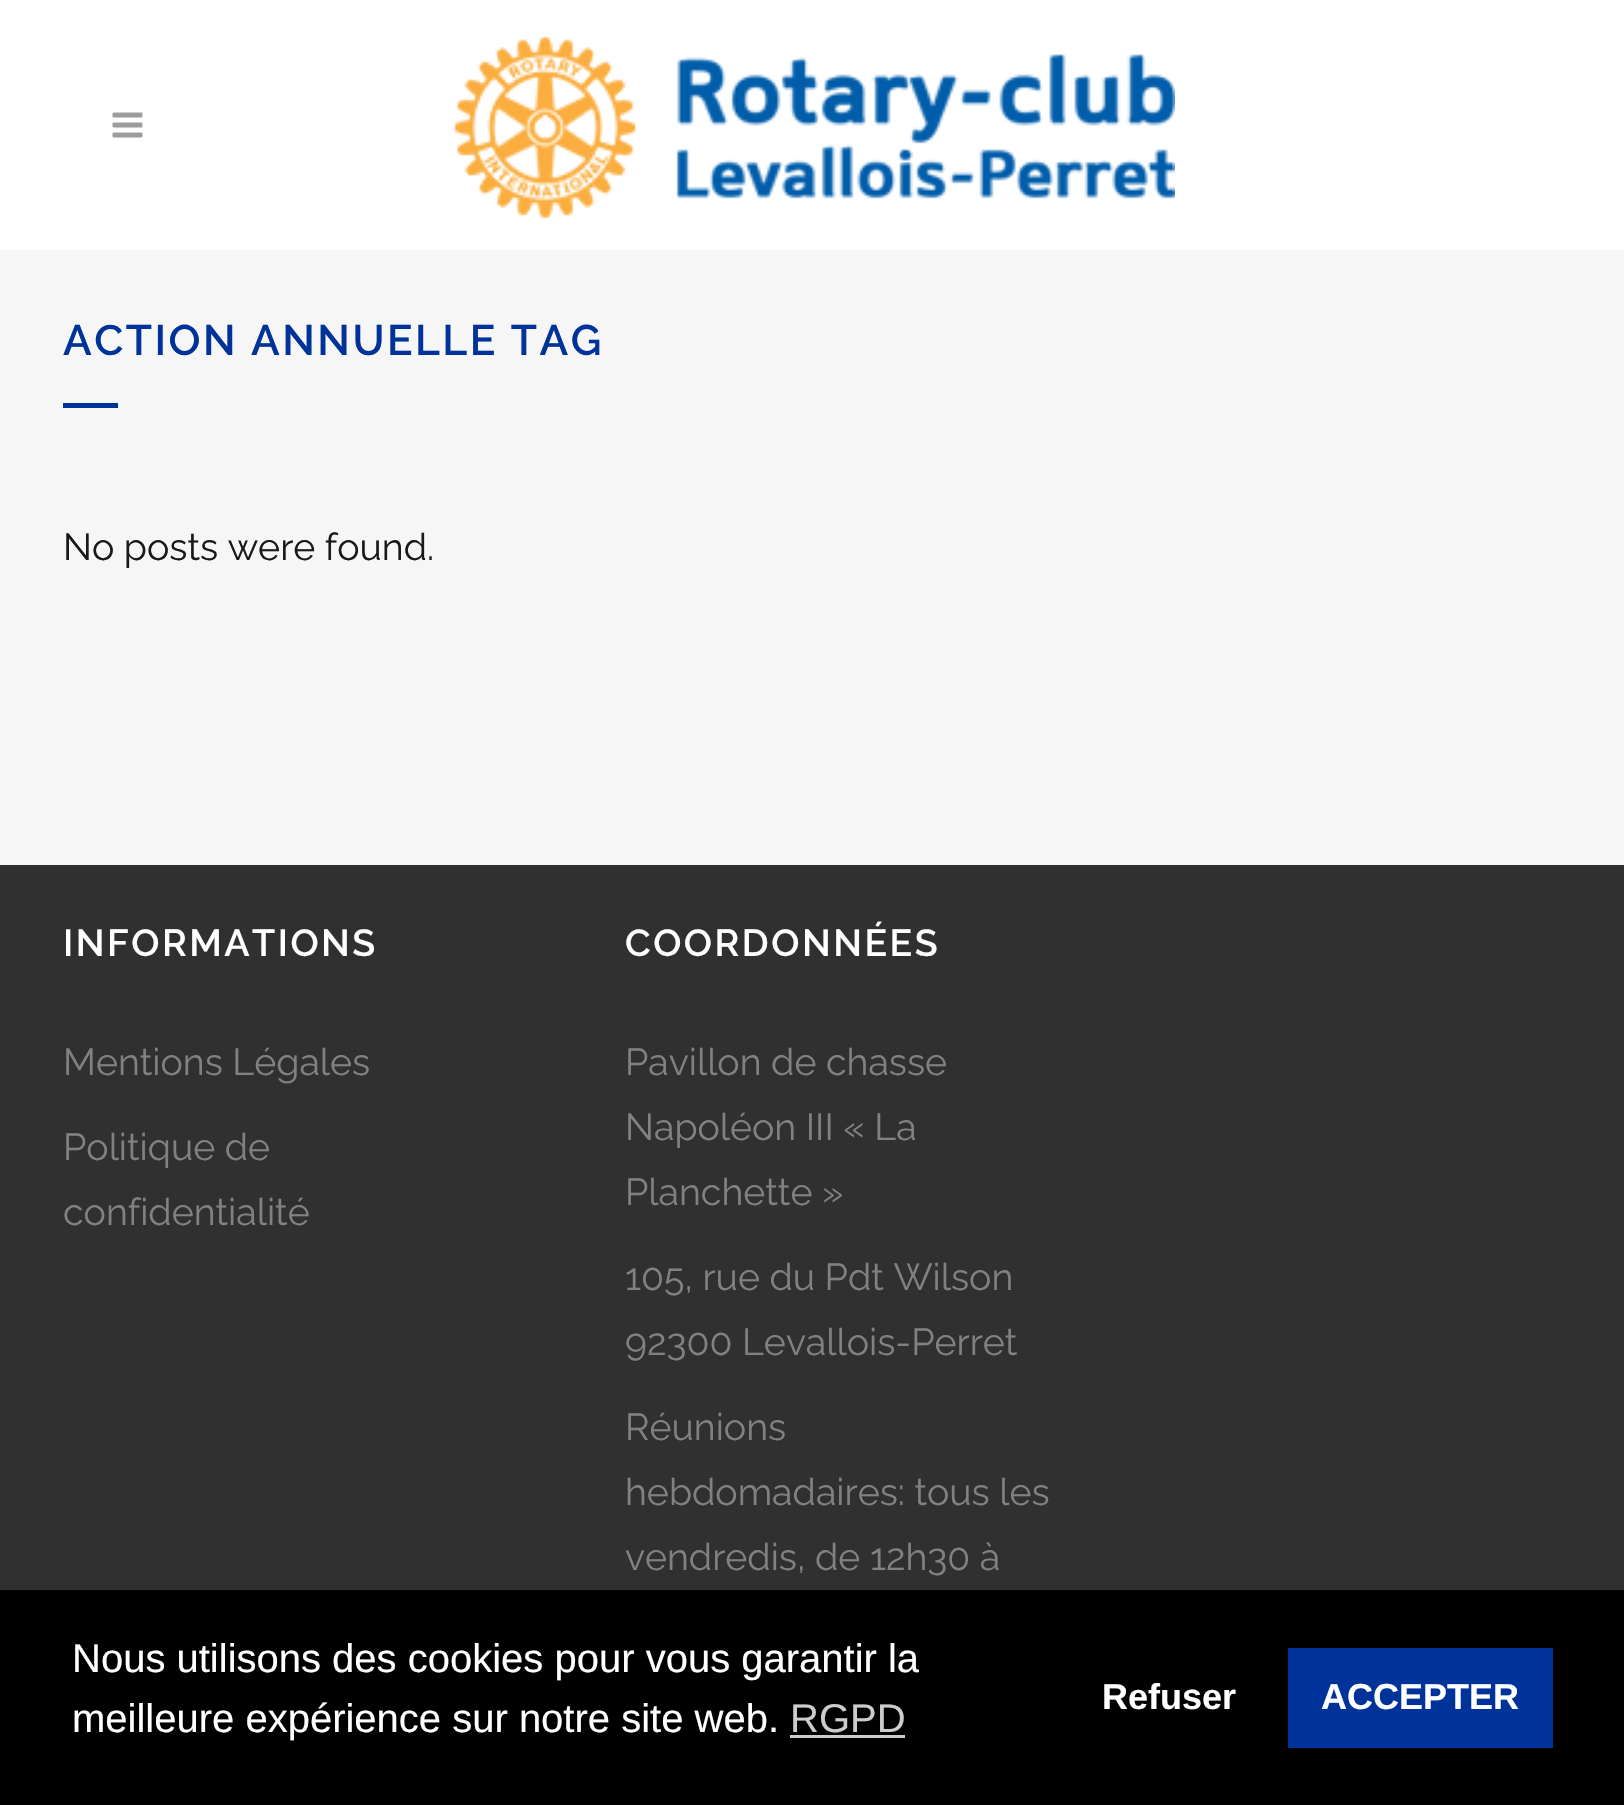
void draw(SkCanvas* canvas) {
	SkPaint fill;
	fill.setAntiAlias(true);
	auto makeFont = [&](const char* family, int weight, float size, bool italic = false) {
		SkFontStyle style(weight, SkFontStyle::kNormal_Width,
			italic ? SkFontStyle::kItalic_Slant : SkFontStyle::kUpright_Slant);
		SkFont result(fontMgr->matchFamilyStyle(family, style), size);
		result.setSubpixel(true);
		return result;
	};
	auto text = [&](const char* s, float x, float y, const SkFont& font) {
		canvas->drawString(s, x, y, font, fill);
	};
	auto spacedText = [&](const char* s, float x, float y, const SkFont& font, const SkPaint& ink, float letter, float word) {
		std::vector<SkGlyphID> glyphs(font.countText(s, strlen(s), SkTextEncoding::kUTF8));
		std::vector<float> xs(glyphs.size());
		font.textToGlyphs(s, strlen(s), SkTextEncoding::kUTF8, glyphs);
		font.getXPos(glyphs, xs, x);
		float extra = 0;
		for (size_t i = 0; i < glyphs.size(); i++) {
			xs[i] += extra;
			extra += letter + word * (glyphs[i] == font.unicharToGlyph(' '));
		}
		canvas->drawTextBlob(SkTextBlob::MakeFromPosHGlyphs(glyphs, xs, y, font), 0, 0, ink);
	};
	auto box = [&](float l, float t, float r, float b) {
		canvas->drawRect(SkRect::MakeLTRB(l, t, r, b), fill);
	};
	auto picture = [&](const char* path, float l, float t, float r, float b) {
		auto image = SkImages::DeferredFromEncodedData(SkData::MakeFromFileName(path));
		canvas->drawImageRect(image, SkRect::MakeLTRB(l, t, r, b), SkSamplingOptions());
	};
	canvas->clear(0xFFF6F6F6);
	fill.setColor(0xFFFFFFFF);
	box(0, 0, 1624, 250);
	picture("image0.png", 112, 112, 143, 138);
	picture("image1.png", 454, 36, 1175, 219);
	fill.setColor(0xFF003399);
	box(63, 403, 118, 408);
	fill.setColor(0xFF303030);
	box(0, 865, 1624, 1590);
	fill.setColor(0xFF000000);
	box(0, 1590, 1624, 1805);
	fill.setColor(0xFFCCCCCC);
	box(790, 1735, 905, 1738);
	fill.setColor(0xFF003399);
	box(1288, 1648, 1553, 1748);
	auto font1 = makeFont("Raleway", 600, 42.5f);
	spacedText("ACTION ANNUELLE TAG", 63, 355, font1, fill, 2.5f, 0);
	auto font2 = makeFont("Raleway", 400, 37.5f);
	fill.setColor(0xFF191919);
	text("No posts were found.", 63, 560, font2);
	auto font3 = makeFont("Raleway", 600, 37.5f);
	fill.setColor(0xFFFFFFFF);
	spacedText("INFORMATIONS", 63, 956, font3, fill, 2.5f, 0);
	fill.setColor(0xFF818181);
	text("Mentions Légales", 63, 1075, font2);
	text("Politique de", 63, 1160, font2);
	text("confidentialité", 63, 1225, font2);
	fill.setColor(0xFFFFFFFF);
	spacedText("COORDONNÉES", 625, 956, font3, fill, 2.5f, 0);
	fill.setColor(0xFF818181);
	text("Pavillon de chasse", 625, 1075, font2);
	text("Napoléon III « La", 625, 1140, font2);
	text("Planchette »", 625, 1205, font2);
	text("105, rue du Pdt Wilson", 625, 1290, font2);
	text("92300 Levallois-Perret", 625, 1355, font2);
	text("Réunions", 625, 1440, font2);
	text("hebdomadaires: tous les", 625, 1505, font2);
	text("vendredis, de 12h30 à", 625, 1570, font2);
	auto font4 = makeFont("Liberation Sans", 400, 40);
	fill.setColor(0xFFFFFFFF);
	text("Nous utilisons des cookies pour vous garantir la", 72, 1672, font4);
	text("meilleure expérience sur notre site web.", 72, 1732, font4);
	fill.setColor(0xFFCCCCCC);
	text("RGPD", 790, 1732, font4);
	auto font5 = makeFont("Liberation Sans", 700, 36);
	fill.setColor(0xFFFFFFFF);
	text("Refuser", 1102, 1709, font5);
	text("ACCEPTER", 1321, 1709, font5);
}
